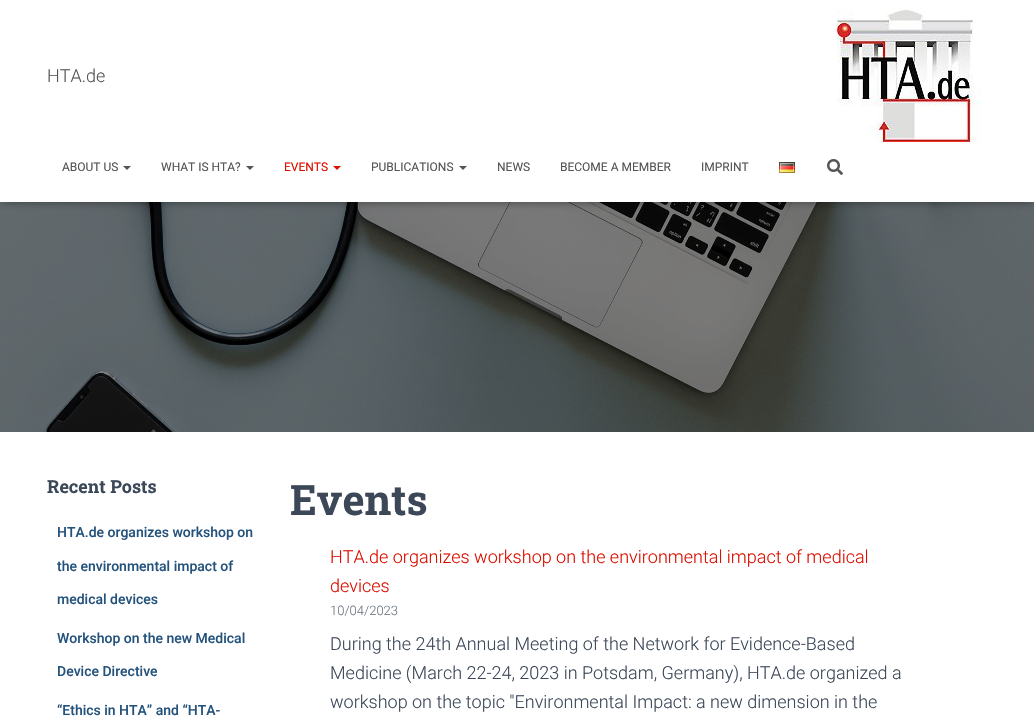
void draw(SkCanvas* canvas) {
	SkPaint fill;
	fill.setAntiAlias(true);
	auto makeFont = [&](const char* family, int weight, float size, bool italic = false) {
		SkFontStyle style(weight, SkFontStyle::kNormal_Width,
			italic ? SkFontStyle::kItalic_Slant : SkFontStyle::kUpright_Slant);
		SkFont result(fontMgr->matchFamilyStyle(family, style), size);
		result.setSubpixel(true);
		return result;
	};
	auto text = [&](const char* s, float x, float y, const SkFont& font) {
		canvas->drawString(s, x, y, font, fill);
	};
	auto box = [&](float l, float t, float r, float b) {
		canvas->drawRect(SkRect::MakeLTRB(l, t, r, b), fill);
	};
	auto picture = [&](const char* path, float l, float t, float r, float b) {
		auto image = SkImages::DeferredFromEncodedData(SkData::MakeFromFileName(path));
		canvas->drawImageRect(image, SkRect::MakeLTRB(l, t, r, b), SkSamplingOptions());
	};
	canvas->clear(0xFFFFFFFF);
	picture("image3.png", 0, 202, 1034, 432);
	fill.setColor(0x1A000000);
	fill.setMaskFilter(SkMaskFilter::MakeBlur(kNormal_SkBlurStyle, 2.5f));
	canvas->drawRect(SkRect::MakeLTRB(2, 6, 1032, 204), fill);
	fill.setMaskFilter(nullptr);
	fill.setColor(0x1F000000);
	fill.setMaskFilter(SkMaskFilter::MakeBlur(kNormal_SkBlurStyle, 5));
	canvas->drawRect(SkRect::MakeLTRB(0, 1, 1034, 203), fill);
	fill.setMaskFilter(nullptr);
	fill.setColor(0x6B000000);
	fill.setMaskFilter(SkMaskFilter::MakeBlur(kNormal_SkBlurStyle, 5));
	canvas->drawRect(SkRect::MakeLTRB(6, 7, 1028, 197), fill);
	fill.setMaskFilter(nullptr);
	fill.setColor(0xFFFFFFFF);
	box(0, 0, 1034, 202);
	picture("image0.png", 837, 10, 981, 142);
	fill.setColor(0xFF555555);
	canvas->drawPath(SkPathBuilder().moveTo(123, 166).lineTo(131, 166).lineTo(127, 170).close().detach(), fill);
	canvas->drawPath(SkPathBuilder().moveTo(246, 166).lineTo(254, 166).lineTo(250, 170).close().detach(), fill);
	fill.setColor(0xFFDD0E00);
	canvas->drawPath(SkPathBuilder().moveTo(333, 166).lineTo(341, 166).lineTo(337, 170).close().detach(), fill);
	fill.setColor(0xFF555555);
	canvas->drawPath(SkPathBuilder().moveTo(459, 166).lineTo(467, 166).lineTo(463, 170).close().detach(), fill);
	picture("image1.png", 779, 162, 795, 173);
	picture("image2.png", 827, 159, 843, 175);
	auto font1 = makeFont("Roboto", 300, 18);
	text("HTA.de", 47, 82, font1);
	auto font2 = makeFont("Roboto", 400, 12);
	text("ABOUT US", 62, 171, font2);
	text("WHAT IS HTA?", 161, 171, font2);
	fill.setColor(0xFFDD0E00);
	text("EVENTS", 284, 171, font2);
	fill.setColor(0xFF555555);
	text("PUBLICATIONS", 371, 171, font2);
	text("NEWS", 497, 171, font2);
	text("BECOME A MEMBER", 560, 171, font2);
	text("IMPRINT", 701, 171, font2);
	auto font3 = makeFont("Roboto Slab", 700, 18);
	fill.setColor(0xFF3C4858);
	text("Recent Posts", 47, 493, font3);
	auto font4 = makeFont("Roboto", 500, 14);
	fill.setColor(0xFF23527C);
	text("HTA.de organizes workshop on", 57, 537, font4);
	text("the environmental impact of", 57, 571, font4);
	text("medical devices", 57, 604, font4);
	text("Workshop on the new Medical", 57, 643, font4);
	text("Device Directive", 57, 676, font4);
	text("“Ethics in HTA” and “HTA-", 57, 715, font4);
	auto font5 = makeFont("Roboto Slab", 700, 42);
	fill.setColor(0xFF3C4858);
	text("Events", 290, 515, font5);
	fill.setColor(0xFFDD0E00);
	text("HTA.de organizes workshop on the environmental impact of medical", 330, 563, font1);
	text("devices", 330, 592, font1);
	auto font6 = makeFont("Roboto", 300, 13);
	fill.setColor(0xFF6C7781);
	text("10/04/2023", 330, 615, font6);
	fill.setColor(0xFF3C4858);
	text("During the 24th Annual Meeting of the Network for Evidence-Based", 330, 650, font1);
	text("Medicine (March 22-24, 2023 in Potsdam, Germany), HTA.de organized a", 330, 679, font1);
	text("workshop on the topic \"Environmental Impact: a new dimension in the", 330, 708, font1);
}
